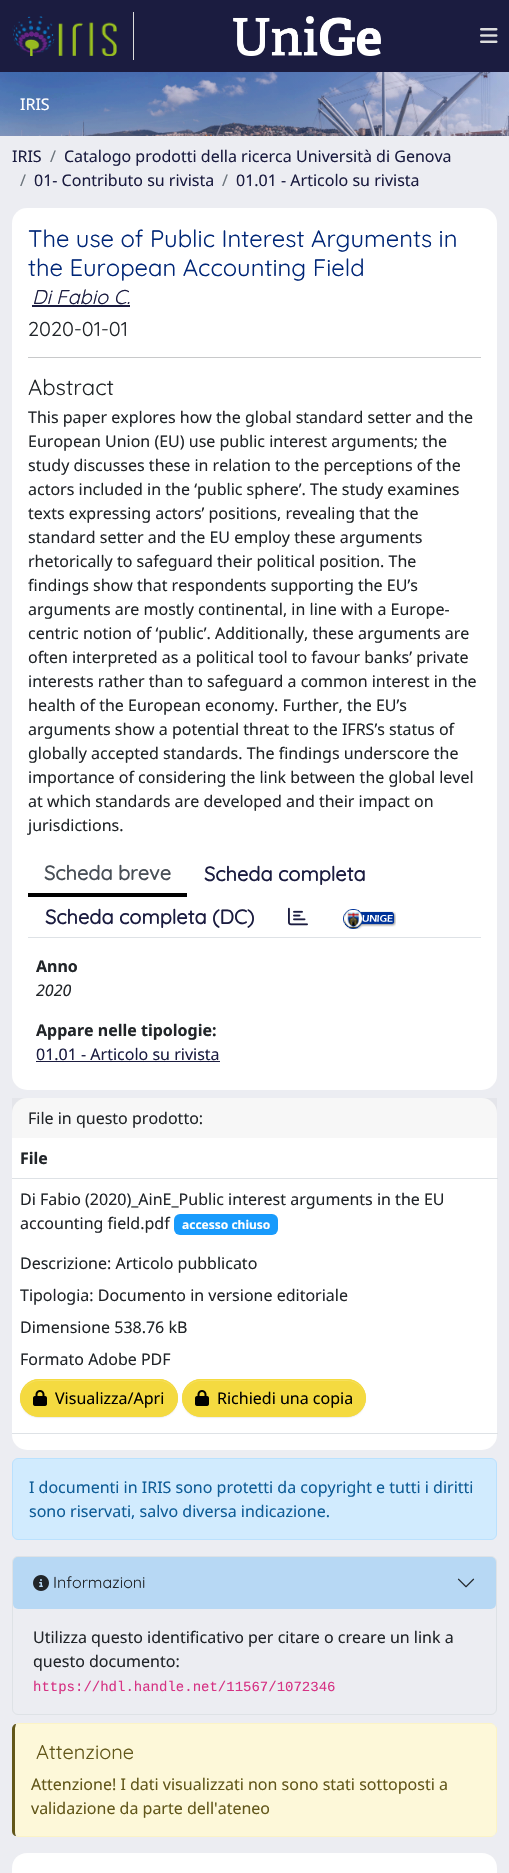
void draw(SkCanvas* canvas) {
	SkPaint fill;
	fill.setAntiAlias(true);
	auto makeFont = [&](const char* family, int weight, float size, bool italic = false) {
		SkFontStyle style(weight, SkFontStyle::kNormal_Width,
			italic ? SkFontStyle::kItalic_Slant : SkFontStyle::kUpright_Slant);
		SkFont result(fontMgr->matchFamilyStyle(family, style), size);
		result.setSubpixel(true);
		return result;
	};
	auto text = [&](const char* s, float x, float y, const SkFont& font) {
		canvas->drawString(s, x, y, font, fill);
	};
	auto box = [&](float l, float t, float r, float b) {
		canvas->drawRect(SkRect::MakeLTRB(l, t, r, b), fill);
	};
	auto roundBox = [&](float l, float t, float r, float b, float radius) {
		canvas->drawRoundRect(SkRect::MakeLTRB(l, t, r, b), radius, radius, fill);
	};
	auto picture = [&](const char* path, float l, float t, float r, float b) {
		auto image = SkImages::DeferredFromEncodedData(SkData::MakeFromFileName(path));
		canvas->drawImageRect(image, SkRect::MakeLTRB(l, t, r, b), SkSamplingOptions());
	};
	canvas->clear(0xFFECEDF2);
	fill.setColor(0xFF1B1C40);
	box(0, 0, 509, 72);
	fill.setColor(0xFFDDDDDD);
	box(133, 12, 134, 60);
	picture("image0.png", 12, 16, 117, 56);
	picture("image1.png", 233, 16, 381, 56);
	picture("image2.png", 480, 28, 498, 43);
	picture("image3.png", 0, 72, 509, 136);
	fill.setColor(0xFFFFFFFF);
	roundBox(12, 208, 497, 1090, 15);
	fill.setColor(0xFF1B1C40);
	box(32, 305, 130, 307);
	fill.setColor(0xFFC8C9CA);
	box(28, 357, 481, 358);
	fill.setColor(0xFFDEE2E6);
	box(28, 937, 481, 938);
	fill.setColor(0xFF000000);
	box(28, 893, 187, 897);
	picture("image4.png", 288, 907, 308, 926);
	picture("image5.png", 343, 909, 396, 929);
	fill.setColor(0xFF1B1C40);
	box(36, 1061, 220, 1062);
	fill.setColor(0xFFFFFFFF);
	roundBox(12, 1098, 497, 1450, 15);
	fill.setColor(0x08000000);
	box(12, 1098, 497, 1138);
	fill.setColor(0xFFDEE2E6);
	box(12, 1178, 498, 1179);
	box(12, 1433, 498, 1434);
	fill.setColor(0xFF199BFC);
	roundBox(174, 1214, 278, 1235, 6);
	fill.setColor(0x12000000);
	fill.setMaskFilter(SkMaskFilter::MakeBlur(kNormal_SkBlurStyle, 0.5f));
	canvas->drawRoundRect(SkRect::MakeLTRB(20, 1380, 178, 1418), 19, 19, fill);
	fill.setMaskFilter(nullptr);
	fill.setColor(0xFFF4DA40);
	roundBox(20, 1379, 178, 1417, 19);
	fill.setColor(0xFFF6E05D);
	canvas->drawPath(SkPathBuilder().moveTo(39, 1381).lineTo(159, 1381).cubicTo(169, 1381, 177, 1389, 177, 1398).cubicTo(177, 1388, 169, 1380, 159, 1380).lineTo(39, 1380).cubicTo(29, 1380, 21, 1388, 21, 1398).cubicTo(21, 1389, 29, 1381, 39, 1381).close().detach(), fill);
	fill.setStyle(SkPaint::kStroke_Style);
	fill.setStrokeWidth(1);
	fill.setColor(0xFFF4DA40);
	canvas->drawRoundRect(SkRect::MakeLTRB(20.5f, 1379.5f, 177.5f, 1416.5f), 18.5f, 18.5f, fill);
	picture("image6.png", 33, 1390, 47, 1406);
	fill.setStyle(SkPaint::kFill_Style);
	fill.setColor(0x12000000);
	fill.setMaskFilter(SkMaskFilter::MakeBlur(kNormal_SkBlurStyle, 0.5f));
	canvas->drawRoundRect(SkRect::MakeLTRB(182, 1380, 366, 1418), 19, 19, fill);
	fill.setMaskFilter(nullptr);
	fill.setColor(0xFFF4DA40);
	roundBox(182, 1379, 366, 1417, 19);
	fill.setColor(0xFFF6E05D);
	canvas->drawPath(SkPathBuilder().moveTo(201, 1381).lineTo(347, 1381).cubicTo(357, 1381, 365, 1389, 365, 1398).cubicTo(365, 1388, 357, 1380, 347, 1380).lineTo(201, 1380).cubicTo(191, 1380, 183, 1388, 183, 1398).cubicTo(183, 1389, 191, 1381, 201, 1381).close().detach(), fill);
	fill.setStyle(SkPaint::kStroke_Style);
	fill.setColor(0xFFF4DA40);
	canvas->drawRoundRect(SkRect::MakeLTRB(182.5f, 1379.5f, 365.5f, 1416.5f), 18.5f, 18.5f, fill);
	picture("image6.png", 195, 1390, 209, 1406);
	fill.setStyle(SkPaint::kFill_Style);
	fill.setColor(0xFFD1EBFE);
	canvas->drawRoundRect(SkRect::MakeLTRB(12.5f, 1458.5f, 496.5f, 1539.5f), 5.5f, 5.5f, fill);
	fill.setStyle(SkPaint::kStroke_Style);
	fill.setColor(0xFFBAE1FE);
	canvas->drawRoundRect(SkRect::MakeLTRB(12.5f, 1458.5f, 496.5f, 1539.5f), 5.5f, 5.5f, fill);
	fill.setColor(0xFFDEE2E6);
	canvas->drawRoundRect(SkRect::MakeLTRB(12.5f, 1556.5f, 496.5f, 1714.5f), 5.5f, 5.5f, fill);
	fill.setStyle(SkPaint::kFill_Style);
	fill.setColor(0x40199BFC);
	roundBox(13, 1557, 496, 1609, 5);
	picture("image7.png", 33, 1575, 49, 1591);
	picture("image8.png", 457, 1578, 475, 1588);
	fill.setColor(0xFFFDF8D9);
	canvas->drawPath(SkPathBuilder().moveTo(18, 1724).lineTo(491, 1724).cubicTo(494, 1724, 496, 1726, 496, 1729).lineTo(496, 1831).cubicTo(496, 1834, 494, 1836, 491, 1836).lineTo(18, 1836).cubicTo(16, 1836, 15, 1834, 15, 1831).lineTo(15, 1729).cubicTo(15, 1726, 16, 1724, 18, 1724).close().detach(), fill);
	fill.setColor(0xFFFCF4C6);
	canvas->drawPath(SkPathBuilder().moveTo(18, 1723).lineTo(15, 1724).lineTo(16, 1724).lineTo(18, 1724).lineTo(491, 1724).cubicTo(492, 1724, 494, 1724, 495, 1725).cubicTo(494, 1724, 492, 1723, 491, 1723).close().detach(), fill);
	canvas->drawPath(SkPathBuilder().moveTo(497, 1831).lineTo(497, 1728).lineTo(495, 1725).lineTo(496, 1728).lineTo(496, 1832).lineTo(495, 1835).cubicTo(496, 1834, 497, 1832, 497, 1831).close().detach(), fill);
	canvas->drawPath(SkPathBuilder().moveTo(18, 1837).lineTo(491, 1837).cubicTo(492, 1837, 494, 1836, 495, 1835).cubicTo(494, 1836, 492, 1836, 491, 1836).lineTo(18, 1836).lineTo(16, 1836).lineTo(15, 1836).close().detach(), fill);
	fill.setColor(0xFF62571A);
	canvas->drawPath(SkPathBuilder().moveTo(12, 1729).lineTo(12, 1831).cubicTo(12, 1833, 13, 1835, 15, 1836).lineTo(16, 1836).cubicTo(15, 1834, 15, 1833, 15, 1831).lineTo(15, 1728).lineTo(16, 1724).lineTo(15, 1724).cubicTo(13, 1725, 12, 1727, 12, 1729).close().detach(), fill);
	fill.setColor(0xFFFFFFFF);
	canvas->drawPath(SkPathBuilder().moveTo(27, 1853).lineTo(482, 1853).cubicTo(490.5f, 1853, 497, 1859.5f, 497, 1868).lineTo(497, 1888).lineTo(12, 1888).lineTo(12, 1868).cubicTo(12, 1859.5f, 18.5f, 1853, 27, 1853).close().detach(), fill);
	auto font1 = makeFont("Noto Sans", 400, 16);
	text("IRIS", 20, 110, font1);
	fill.setColor(0xFF1B1C40);
	text("IRIS", 12, 162, font1);
	fill.setColor(0xFF6C757D);
	text("/", 50, 162, font1);
	fill.setColor(0xFF1B1C40);
	text("Catalogo prodotti della ricerca Università di Genova", 64, 162, font1);
	fill.setColor(0xFF6C757D);
	text("/", 20, 186, font1);
	fill.setColor(0xFF1B1C40);
	text("01- Contributo su rivista", 34, 186, font1);
	fill.setColor(0xFF6C757D);
	text("/", 222, 186, font1);
	fill.setColor(0xFF1B1C40);
	text("01.01 - Articolo su rivista", 236, 186, font1);
	auto font2 = makeFont("Quicksand", 300, 23.8f);
	fill.setColor(0xFF002677);
	text("The use of Public Interest Arguments in", 28, 247, font2);
	text("the European Accounting Field", 28, 276, font2);
	auto font3 = makeFont("Quicksand", 300, 20, true);
	fill.setColor(0xFF1B1C40);
	text("Di Fabio C.", 32, 304, font3);
	auto font4 = makeFont("Quicksand", 300, 20);
	fill.setColor(0xFF212529);
	text("2020-01-01", 28, 336, font4);
	auto font5 = makeFont("Quicksand", 300, 22);
	text("Abstract", 28, 395, font5);
	text("This paper explores how the global standard setter and the", 28, 423, font1);
	text("European Union (EU) use public interest arguments; the", 28, 447, font1);
	text("study discusses these in relation to the perceptions of the", 28, 471, font1);
	text("actors included in the ‘public sphere’. The study examines", 28, 495, font1);
	text("texts expressing actors’ positions, revealing that the", 28, 519, font1);
	text("standard setter and the EU employ these arguments", 28, 543, font1);
	text("rhetorically to safeguard their political position. The", 28, 567, font1);
	text("findings show that respondents supporting the EU’s", 28, 591, font1);
	text("arguments are mostly continental, in line with a Europe-", 28, 615, font1);
	text("centric notion of ‘public’. Additionally, these arguments are", 28, 639, font1);
	text("often interpreted as a political tool to favour banks’ private", 28, 663, font1);
	text("interests rather than to safeguard a common interest in the", 28, 687, font1);
	text("health of the European economy. Further, the EU’s", 28, 711, font1);
	text("arguments show a potential threat to the IFRS’s status of", 28, 735, font1);
	text("globally accepted standards. The findings underscore the", 28, 759, font1);
	text("importance of considering the link between the global level", 28, 783, font1);
	text("at which standards are developed and their impact on", 28, 807, font1);
	text("jurisdictions.", 28, 831, font1);
	auto font6 = makeFont("Quicksand", 700, 20);
	fill.setColor(0xFF495057);
	text("Scheda breve", 44, 880, font6);
	fill.setColor(0xFF1B1C40);
	text("Scheda completa", 204, 881, font6);
	text("Scheda completa (DC)", 45, 924, font6);
	auto font7 = makeFont("Noto Sans", 700, 16);
	fill.setColor(0xFF212529);
	text("Anno", 36, 972, font7);
	auto font8 = makeFont("Noto Sans", 400, 16, true);
	text("2020", 36, 996, font8);
	text("Appare nelle tipologie:", 36, 1036, font7);
	fill.setColor(0xFF1B1C40);
	text("01.01 - Articolo su rivista", 36, 1060, font1);
	fill.setColor(0xFF212529);
	text("File in questo prodotto:", 28, 1124, font1);
	text("File", 20, 1164, font7);
	text("Di Fabio (2020)_AinE_Public interest arguments in the EU", 20, 1205, font1);
	text("accounting field.pdf", 20, 1229, font1);
	auto font9 = makeFont("Noto Sans", 700, 12);
	fill.setColor(0xFFFFFFFF);
	text("accesso chiuso", 182, 1229, font9);
	fill.setColor(0xFF212529);
	text("Descrizione: Articolo pubblicato", 20, 1269, font1);
	text("Tipologia: Documento in versione editoriale", 20, 1301, font1);
	text("Dimensione 538.76 kB", 20, 1333, font1);
	text("Formato Adobe PDF", 20, 1365, font1);
	fill.setColor(0xFF000000);
	text("Visualizza/Apri", 55, 1404, font1);
	text("Richiedi una copia", 217, 1404, font1);
	fill.setColor(0xFF0F5D97);
	text("I documenti in IRIS sono protetti da copyright e tutti i diritti", 29, 1493, font1);
	text("sono riservati, salvo diversa indicazione.", 29, 1517, font1);
	auto font10 = makeFont("Quicksand", 300, 16);
	fill.setColor(0xFF212529);
	text("Informazioni", 53, 1588, font10);
	text("Utilizza questo identificativo per citare o creare un link a", 33, 1643, font1);
	text("questo documento:", 33, 1667, font1);
	auto font11 = makeFont("Liberation Mono", 400, 14);
	fill.setColor(0xFFD63384);
	text("https://hdl.handle.net/11567/1072346", 33, 1691, font11);
	fill.setColor(0xFF62571A);
	text("Attenzione", 36, 1759, font4);
	text("Attenzione! I dati visualizzati non sono stati sottoposti a", 31, 1790, font1);
	text("validazione da parte dell'ateneo", 31, 1814, font1);
}
